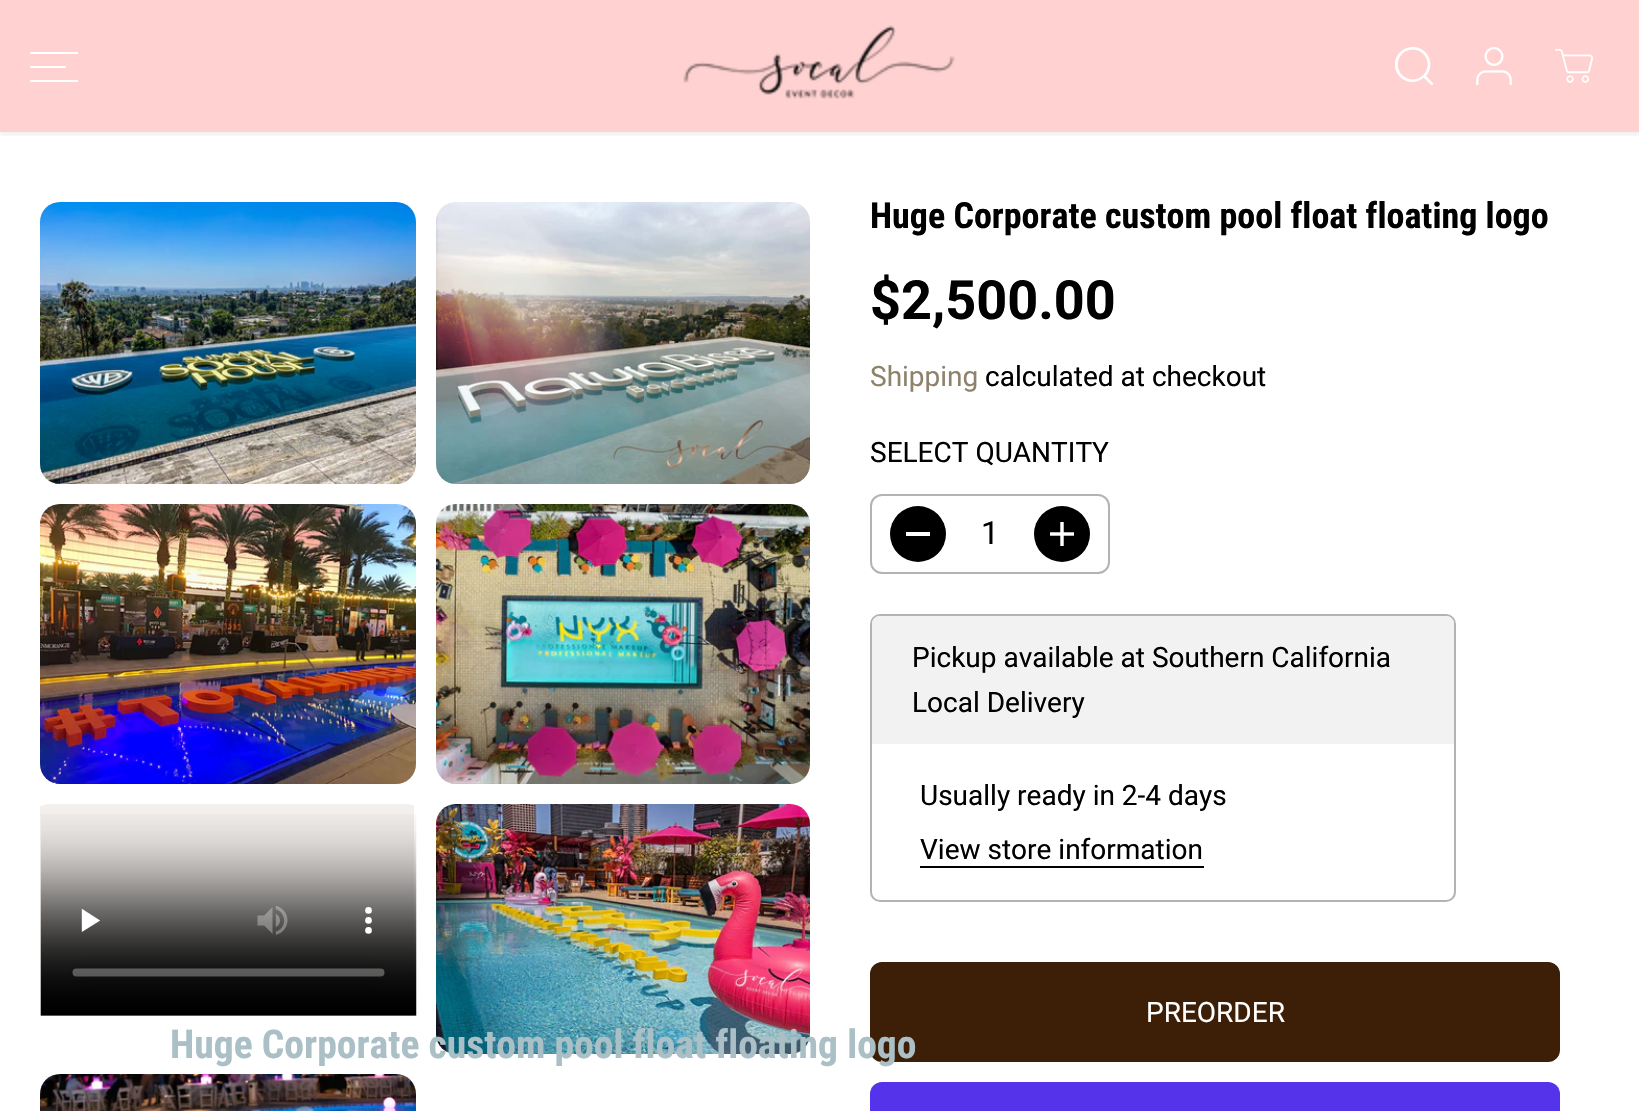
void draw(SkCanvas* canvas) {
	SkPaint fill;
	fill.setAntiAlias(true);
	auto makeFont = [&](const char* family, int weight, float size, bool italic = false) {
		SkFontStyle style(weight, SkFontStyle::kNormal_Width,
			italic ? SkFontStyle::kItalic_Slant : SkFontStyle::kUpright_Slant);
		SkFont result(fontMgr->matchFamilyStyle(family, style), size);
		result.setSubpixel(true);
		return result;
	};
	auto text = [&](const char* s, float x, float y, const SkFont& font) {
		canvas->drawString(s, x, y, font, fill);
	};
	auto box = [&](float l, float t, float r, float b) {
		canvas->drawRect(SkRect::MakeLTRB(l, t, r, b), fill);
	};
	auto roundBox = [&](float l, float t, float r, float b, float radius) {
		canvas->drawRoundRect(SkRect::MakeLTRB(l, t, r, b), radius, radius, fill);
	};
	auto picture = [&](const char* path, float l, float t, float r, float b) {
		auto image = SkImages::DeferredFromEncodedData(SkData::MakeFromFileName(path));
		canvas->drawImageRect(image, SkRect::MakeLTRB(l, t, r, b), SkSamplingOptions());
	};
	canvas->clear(0xFFFFFFFF);
	fill.setColor(0xFFFFD1D1);
	box(0, 0, 1639, 132);
	canvas->save();
	canvas->clipRect(SkRect::MakeLTRB(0, 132, 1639, 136));
	fill.setColor(0x0D000000);
	fill.setMaskFilter(SkMaskFilter::MakeBlur(kNormal_SkBlurStyle, 2));
	canvas->drawRect(SkRect::MakeLTRB(0, 4, 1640, 136), fill);
	fill.setMaskFilter(nullptr);
	canvas->restore();
	fill.setColor(0xFFFFFFFF);
	box(30, 66, 66, 68);
	box(30, 52, 78, 54);
	box(30, 80, 78, 82);
	picture("image0.png", 683, 25, 955, 99);
	picture("image1.png", 1395, 47, 1434, 86);
	picture("image2.png", 1476, 47, 1512, 86);
	picture("image3.png", 1555, 49, 1593, 83);
	fill.setColor(0xFFF3EFEC);
	roundBox(40, 202, 416, 484, 20);
	picture("image4.png", 40, 202, 416, 484);
	roundBox(436, 202, 810, 484, 20);
	picture("image5.png", 436, 202, 810, 484);
	roundBox(40, 504, 416, 784, 20);
	picture("image6.png", 40, 504, 416, 784);
	roundBox(436, 504, 810, 784, 20);
	picture("image7.png", 436, 504, 810, 784);
	canvas->save();
	canvas->clipPath(SkPathBuilder().moveTo(50, 804).lineTo(406, 804).cubicTo(417, 804, 426, 813, 426, 824).lineTo(426, 1054).cubicTo(426, 1065, 417, 1074, 406, 1074).lineTo(50, 1074).cubicTo(39, 1074, 30, 1065, 30, 1054).lineTo(30, 824).cubicTo(30, 813, 39, 804, 50, 804).close().detach(), true);
	box(40, 804, 414, 1016);
	canvas->restore();
	picture("image8.png", 40, 814, 417, 1016);
	roundBox(436, 804, 810, 1054, 20);
	picture("image9.png", 436, 804, 810, 1054);
	roundBox(40, 1074, 416, 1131, 20);
	picture("image10.png", 40, 1074, 416, 1111);
	fill.setStyle(SkPaint::kStroke_Style);
	fill.setStrokeWidth(2);
	fill.setColor(0xFFB3B3B3);
	canvas->drawRoundRect(SkRect::MakeLTRB(871, 495, 1109, 573), 11, 11, fill);
	fill.setStyle(SkPaint::kFill_Style);
	fill.setColor(0xFF000000);
	canvas->drawCircle(918, 534, 28, fill);
	fill.setColor(0xFFFFFFFF);
	box(906, 532, 930, 536);
	fill.setColor(0xFF000000);
	canvas->drawCircle(1062, 534, 28, fill);
	picture("image11.png", 1050, 522, 1074, 546);
	fill.setStyle(SkPaint::kStroke_Style);
	fill.setColor(0xFFB3B3B3);
	canvas->drawRoundRect(SkRect::MakeLTRB(871, 615, 1455, 901), 9, 9, fill);
	fill.setStyle(SkPaint::kFill_Style);
	fill.setColor(0xFFF2F2F2);
	canvas->drawPath(SkPathBuilder().moveTo(880, 616).lineTo(1446, 616).cubicTo(1450.5f, 616, 1454, 619.5f, 1454, 624).lineTo(1454, 744).lineTo(872, 744).lineTo(872, 624).cubicTo(872, 619.5f, 875.5f, 616, 880, 616).close().detach(), fill);
	fill.setColor(0xFF000000);
	box(920, 866, 1204, 868);
	fill.setColor(0xFF3D1E06);
	canvas->drawRoundRect(SkRect::MakeLTRB(871, 963, 1559, 1061), 11, 11, fill);
	fill.setStyle(SkPaint::kStroke_Style);
	canvas->drawRoundRect(SkRect::MakeLTRB(871, 963, 1559, 1061), 11, 11, fill);
	fill.setStyle(SkPaint::kFill_Style);
	fill.setColor(0xFF5433EB);
	roundBox(870, 1082, 1560, 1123, 12);
	auto font1 = makeFont("Roboto Condensed", 700, 36);
	fill.setColor(0xFF000000);
	text("Huge Corporate custom pool float floating logo", 870, 228, font1);
	auto font2 = makeFont("Roboto", 700, 54);
	text("$2,500.00", 870, 319, font2);
	auto font3 = makeFont("Roboto", 400, 28);
	fill.setColor(0xFF8F826B);
	text("Shipping", 870, 386, font3);
	fill.setColor(0xFF000000);
	text("calculated at checkout", 985, 386, font3);
	text("SELECT QUANTITY", 870, 462, font3);
	auto font4 = makeFont("Roboto", 400, 32);
	text("1", 981, 544, font4);
	text("Pickup available at Southern California", 912, 667, font3);
	text("Local Delivery", 912, 712, font3);
	text("Usually ready in 2-4 days", 920, 805, font3);
	text("View store information", 920, 859, font3);
	fill.setColor(0xFFFFFFFF);
	text("PREORDER", 1146, 1022, font3);
	auto font5 = makeFont("Roboto Condensed", 700, 39.6f);
	fill.setColor(0xFFAAC0C6);
	text("Huge Corporate custom pool float floating logo", 170, 1058, font5);
}
